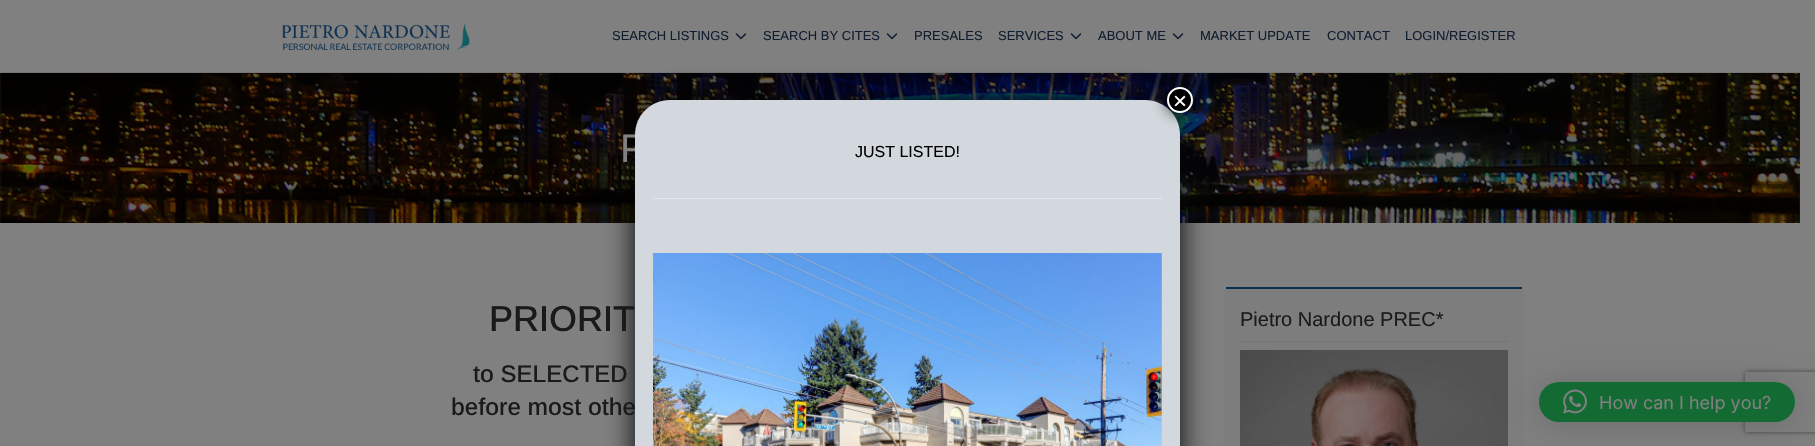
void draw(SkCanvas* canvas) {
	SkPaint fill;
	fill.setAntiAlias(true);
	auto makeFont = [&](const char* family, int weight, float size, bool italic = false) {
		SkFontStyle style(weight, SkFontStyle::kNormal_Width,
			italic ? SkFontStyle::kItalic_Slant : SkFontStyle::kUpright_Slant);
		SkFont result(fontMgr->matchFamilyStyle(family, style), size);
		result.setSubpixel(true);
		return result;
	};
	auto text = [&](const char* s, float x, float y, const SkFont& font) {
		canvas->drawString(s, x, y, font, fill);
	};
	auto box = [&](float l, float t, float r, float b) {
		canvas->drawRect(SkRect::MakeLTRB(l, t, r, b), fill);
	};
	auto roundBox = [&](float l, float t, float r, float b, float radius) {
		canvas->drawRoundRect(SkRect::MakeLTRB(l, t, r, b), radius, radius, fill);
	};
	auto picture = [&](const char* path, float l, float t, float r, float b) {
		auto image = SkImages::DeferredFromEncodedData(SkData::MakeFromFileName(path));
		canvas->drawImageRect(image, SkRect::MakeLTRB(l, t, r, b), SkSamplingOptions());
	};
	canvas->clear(0xFF808080);
	fill.setColor(0xFF767676);
	box(0, 72, 1800, 73);
	picture("image0.png", 282, 22, 470, 50);
	picture("image1.png", 735, 33, 747, 40);
	picture("image1.png", 886, 33, 898, 40);
	picture("image1.png", 1070, 33, 1082, 40);
	picture("image1.png", 1172, 33, 1184, 40);
	picture("image2.png", 0, 73, 1800, 223);
	fill.setColor(0xFF7D7D7D);
	canvas->drawPath(SkPathBuilder().moveTo(1228, 289).lineTo(1520, 289).cubicTo(1522, 289, 1524, 290, 1524, 291).lineTo(1524, 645).cubicTo(1524, 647, 1522, 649, 1520, 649).lineTo(1228, 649).cubicTo(1226, 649, 1224, 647, 1224, 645).lineTo(1224, 291).cubicTo(1224, 290, 1226, 289, 1228, 289).close().detach(), fill);
	fill.setColor(0xFF0C2F4F);
	box(1226, 287, 1522, 289);
	fill.setColor(0xFF737476);
	box(1240, 341, 1508, 342);
	picture("image3.png", 1240, 350, 1508, 446);
	fill.setColor(0xFF020202);
	fill.setMaskFilter(SkMaskFilter::MakeBlur(kNormal_SkBlurStyle, 15));
	canvas->drawRoundRect(SkRect::MakeLTRB(635, 100, 1180, 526), 35, 35, fill);
	fill.setMaskFilter(nullptr);
	fill.setColor(0x29000000);
	fill.setMaskFilter(SkMaskFilter::MakeBlur(kNormal_SkBlurStyle, 16));
	canvas->drawRoundRect(SkRect::MakeLTRB(1539, 384, 1795, 424), 20, 20, fill);
	fill.setMaskFilter(nullptr);
	canvas->save();
	canvas->clipPath(SkPathBuilder(SkPathFillType::kEvenOdd).moveTo(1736, 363).lineTo(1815, 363).lineTo(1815, 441).lineTo(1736, 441).close().moveTo(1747, 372).lineTo(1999, 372).cubicTo(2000, 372, 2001, 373, 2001, 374).lineTo(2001, 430).cubicTo(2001, 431, 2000, 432, 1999, 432).lineTo(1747, 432).cubicTo(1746, 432, 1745, 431, 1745, 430).lineTo(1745, 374).cubicTo(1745, 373, 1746, 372, 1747, 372).close().detach(), true);
	fill.setColor(0xFF404040);
	fill.setMaskFilter(SkMaskFilter::MakeBlur(kNormal_SkBlurStyle, 2.5f));
	canvas->drawRoundRect(SkRect::MakeLTRB(1745, 372, 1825, 432), 2, 2, fill);
	fill.setMaskFilter(nullptr);
	canvas->restore();
	fill.setColor(0xFF136A33);
	roundBox(1539, 382, 1795, 422, 20);
	picture("image5.png", 1563, 389, 1587, 414);
	auto font1 = makeFont("Arimo", 400, 13);
	fill.setColor(0xFF101D2E);
	text("SEARCH LISTINGS", 612, 40, font1);
	text("SEARCH BY CITES", 763, 40, font1);
	text("PRESALES", 914, 40, font1);
	text("SERVICES", 998, 40, font1);
	text("ABOUT ME", 1098, 40, font1);
	text("MARKET UPDATE", 1200, 40, font1);
	text("CONTACT", 1327, 40, font1);
	text("LOGIN/REGISTER", 1405, 40, font1);
	auto font2 = makeFont("Arimo", 400, 40);
	fill.setColor(0xFF808080);
	text("P", 620, 162, font2);
	auto font3 = makeFont("Arimo", 500, 36);
	fill.setColor(0xFF1A1A1A);
	text("PRIORIT", 489, 331, font3);
	auto font4 = makeFont("Arimo", 500, 24);
	text("to SELECTED", 473, 382, font4);
	text("before most othe", 451, 415, font4);
	auto font5 = makeFont("Arimo", 400, 20);
	text("Pietro Nardone PREC*", 1240, 326, font5);
	fill.setColor(0xFFD2D8DD);
	canvas->drawPath(SkPathBuilder().moveTo(670, 100).lineTo(1145, 100).cubicTo(1164.5f, 100, 1180, 115.5f, 1180, 135).lineTo(1180, 446).lineTo(635, 446).lineTo(635, 135).cubicTo(635, 115.5f, 650.5f, 100, 670, 100).close().detach(), fill);
	fill.setColor(0xBF020202);
	fill.setMaskFilter(SkMaskFilter::MakeBlur(kNormal_SkBlurStyle, 7.5f));
	canvas->drawRoundRect(SkRect::MakeLTRB(1166, 86, 1194, 114), 14, 14, fill);
	fill.setMaskFilter(nullptr);
	fill.setColor(0xFF000000);
	canvas->drawCircle(1180, 100, 12, fill);
	fill.setStyle(SkPaint::kStroke_Style);
	fill.setStrokeWidth(2);
	fill.setColor(0xFFFFFFFF);
	canvas->drawCircle(1180, 100, 12, fill);
	auto font6 = makeFont("Liberation Sans", 400, 24);
	fill.setStyle(SkPaint::kFill_Style);
	text("×", 1173, 109, font6);
	auto font7 = makeFont("Arimo", 400, 16);
	fill.setColor(0xFF000000);
	text("JUST LISTED!", 855, 157, font7);
	fill.setColor(0xFFE5E7EB);
	box(653, 198, 1162, 199);
	picture("image4.png", 653, 253, 1162, 446);
	auto font8 = makeFont("Inter", 400, 18);
	fill.setColor(0xFF808080);
	text("How can I help you?", 1599, 409, font8);
}
